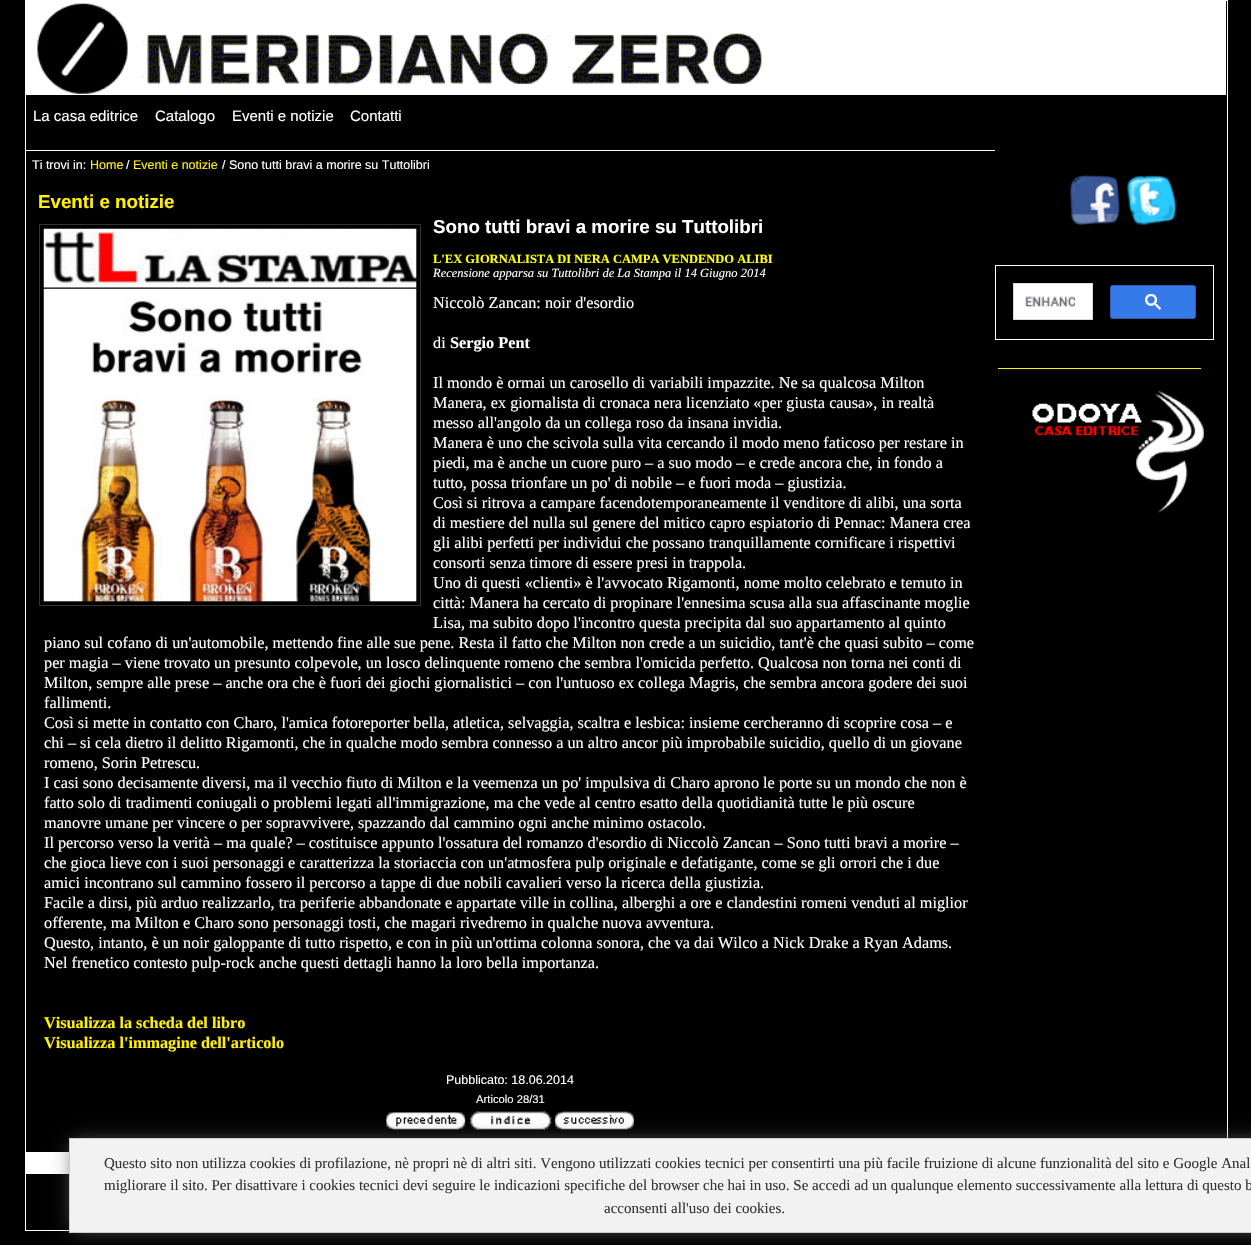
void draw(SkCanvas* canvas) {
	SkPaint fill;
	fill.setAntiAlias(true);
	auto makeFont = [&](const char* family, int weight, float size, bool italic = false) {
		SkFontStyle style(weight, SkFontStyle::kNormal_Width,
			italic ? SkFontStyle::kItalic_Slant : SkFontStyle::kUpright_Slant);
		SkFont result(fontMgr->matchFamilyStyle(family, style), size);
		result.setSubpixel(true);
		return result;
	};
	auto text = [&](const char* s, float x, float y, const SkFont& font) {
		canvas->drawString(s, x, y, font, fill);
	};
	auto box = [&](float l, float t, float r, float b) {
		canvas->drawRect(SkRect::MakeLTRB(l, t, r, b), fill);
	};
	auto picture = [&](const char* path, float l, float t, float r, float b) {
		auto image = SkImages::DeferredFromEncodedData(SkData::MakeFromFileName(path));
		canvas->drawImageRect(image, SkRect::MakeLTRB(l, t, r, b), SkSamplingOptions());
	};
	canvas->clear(0xFF000000);
	fill.setStyle(SkPaint::kStroke_Style);
	fill.setStrokeWidth(1);
	fill.setColor(0xFFFFFFFF);
	canvas->drawRect(SkRect::MakeLTRB(25.5f, 0.5f, 1227.5f, 1230.5f), fill);
	fill.setStyle(SkPaint::kFill_Style);
	box(26, 1, 1226, 95);
	picture("image0.png", 37, 3, 762, 94);
	box(26, 150, 995, 151);
	fill.setStyle(SkPaint::kStroke_Style);
	fill.setColor(0xFF333333);
	canvas->drawRect(SkRect::MakeLTRB(39.5f, 224.5f, 420.5f, 605.5f), fill);
	picture("image1.png", 43, 228, 417, 603);
	picture("image2.png", 386, 1112, 466, 1130);
	picture("image3.png", 470, 1111, 552, 1130);
	picture("image4.png", 554, 1111, 635, 1130);
	picture("image5.png", 1070, 175, 1120, 225);
	picture("image6.png", 1126, 175, 1177, 225);
	fill.setColor(0xFFFFFFFF);
	canvas->drawRect(SkRect::MakeLTRB(995.5f, 265.5f, 1213.5f, 339.5f), fill);
	fill.setStyle(SkPaint::kFill_Style);
	canvas->drawRect(SkRect::MakeLTRB(1013.5f, 283.5f, 1092.5f, 319.5f), fill);
	fill.setStyle(SkPaint::kStroke_Style);
	fill.setColor(0xFFD9D9D9);
	canvas->drawRect(SkRect::MakeLTRB(1013.5f, 283.5f, 1092.5f, 319.5f), fill);
	picture("image7.png", 1025, 296, 1075, 307);
	fill.setStyle(SkPaint::kFill_Style);
	fill.setColor(0xFF357AE8);
	canvas->drawRoundRect(SkRect::MakeLTRB(1110.5f, 285.5f, 1195.5f, 318.5f), 2, 2, fill);
	fill.setStyle(SkPaint::kStroke_Style);
	fill.setColor(0xFF2F5BB7);
	canvas->drawRoundRect(SkRect::MakeLTRB(1110.5f, 285.5f, 1195.5f, 318.5f), 2, 2, fill);
	picture("image8.png", 1145, 294, 1161, 310);
	fill.setStyle(SkPaint::kFill_Style);
	fill.setColor(0xFFFFEF01);
	box(998, 368, 1201, 369);
	picture("image9.png", 1032, 391, 1204, 513);
	fill.setColor(0xFFFFFFFF);
	box(26, 1152, 69, 1174);
	fill.setColor(0xFF666666);
	fill.setMaskFilter(SkMaskFilter::MakeBlur(kNormal_SkBlurStyle, 10));
	canvas->drawRect(SkRect::MakeLTRB(74, 1143, 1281, 1228), fill);
	fill.setMaskFilter(nullptr);
	fill.setColor(0xFFF2F2F2);
	canvas->drawRect(SkRect::MakeLTRB(69.5f, 1138.5f, 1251.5f, 1232.5f), fill);
	fill.setStyle(SkPaint::kStroke_Style);
	fill.setColor(0xFFCCCCCC);
	canvas->drawRect(SkRect::MakeLTRB(69.5f, 1138.5f, 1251.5f, 1232.5f), fill);
	auto font1 = makeFont("Liberation Sans", 400, 15);
	fill.setStyle(SkPaint::kFill_Style);
	fill.setColor(0xFFFFFFFF);
	text("La casa editrice", 33, 121, font1);
	text("Catalogo", 155, 121, font1);
	text("Eventi e notizie", 232, 121, font1);
	text("Contatti", 350, 121, font1);
	auto font2 = makeFont("Liberation Sans", 400, 12.5f);
	text("Ti trovi in:", 32, 169, font2);
	fill.setColor(0xFFFFEF01);
	text("Home", 90, 169, font2);
	fill.setColor(0xFFFFFFFF);
	text("/", 126, 169, font2);
	fill.setColor(0xFFFFEF01);
	text("Eventi e notizie", 133, 169, font2);
	fill.setColor(0xFFFFFFFF);
	text("/ Sono tutti bravi a morire su Tuttolibri", 222, 169, font2);
	auto font3 = makeFont("Liberation Sans", 700, 18.75f);
	fill.setColor(0xFFFFEF01);
	text("Eventi e notizie", 38, 208, font3);
	fill.setColor(0xFFFFFFFF);
	text("Sono tutti bravi a morire su Tuttolibri", 433, 233, font3);
	auto font4 = makeFont("Liberation Serif", 700, 12.5f);
	fill.setColor(0xFFFFFF00);
	text("L'EX GIORNALISTA DI NERA CAMPA VENDENDO ALIBI", 433, 263, font4);
	auto font5 = makeFont("Liberation Serif", 400, 12.5f, true);
	fill.setColor(0xFFFFFFFF);
	text("Recensione apparsa su Tuttolibri de La Stampa il 14 Giugno 2014", 433, 277, font5);
	auto font6 = makeFont("Liberation Serif", 400, 16.25f);
	text("Niccolò Zancan: noir d'esordio", 433, 308, font6);
	text("di", 433, 348, font6);
	auto font7 = makeFont("Liberation Serif", 700, 16.25f);
	text("Sergio Pent", 450, 348, font7);
	text("Il mondo è ormai un carosello di variabili impazzite. Ne sa qualcosa Milton", 433, 388, font6);
	text("Manera, ex giornalista di cronaca nera licenziato «per giusta causa», in realtà", 433, 408, font6);
	text("messo all'angolo da un collega roso da insana invidia.", 433, 428, font6);
	text("Manera è uno che scivola sulla vita cercando il modo meno faticoso per restare in", 433, 448, font6);
	text("piedi, ma è anche un cuore puro – a suo modo – e crede ancora che, in fondo a", 433, 468, font6);
	text("tutto, possa trionfare un po' di nobile – e fuori moda – giustizia.", 433, 488, font6);
	text("Così si ritrova a campare facendotemporaneamente il venditore di alibi, una sorta", 433, 508, font6);
	text("di mestiere del nulla sul genere del mitico capro espiatorio di Pennac: Manera crea", 433, 528, font6);
	text("gli alibi perfetti per individui che possano tranquillamente cornificare i rispettivi", 433, 548, font6);
	text("consorti senza timore di essere presi in trappola.", 433, 568, font6);
	text("Uno di questi «clienti» è l'avvocato Rigamonti, nome molto celebrato e temuto in", 433, 588, font6);
	text("città: Manera ha cercato di propinare l'ennesima scusa alla sua affascinante moglie", 433, 608, font6);
	text("Lisa, ma subito dopo l'incontro questa precipita dal suo appartamento al quinto", 433, 628, font6);
	text("piano sul cofano di un'automobile, mettendo fine alle sue pene. Resta il fatto che Milton non crede a un suicidio, tant'è che quasi subito – come", 44, 648, font6);
	text("per magia – viene trovato un presunto colpevole, un losco delinquente romeno che sembra l'omicida perfetto. Qualcosa non torna nei conti di", 44, 668, font6);
	text("Milton, sempre alle prese – anche ora che è fuori dei giochi giornalistici – con l'untuoso ex collega Magris, che sembra ancora godere dei suoi", 44, 688, font6);
	text("fallimenti.", 44, 708, font6);
	text("Così si mette in contatto con Charo, l'amica fotoreporter bella, atletica, selvaggia, scaltra e lesbica: insieme cercheranno di scoprire cosa – e", 44, 728, font6);
	text("chi – si cela dietro il delitto Rigamonti, che in qualche modo sembra connesso a un altro ancor più improbabile suicidio, quello di un giovane", 44, 748, font6);
	text("romeno, Sorin Petrescu.", 44, 768, font6);
	text("I casi sono decisamente diversi, ma il vecchio fiuto di Milton e la veemenza un po' impulsiva di Charo aprono le porte su un mondo che non è", 44, 788, font6);
	text("fatto solo di tradimenti coniugali o problemi legati all'immigrazione, ma che vede al centro esatto della quotidianità tutte le più oscure", 44, 808, font6);
	text("manovre umane per vincere o per sopravvivere, spazzando dal cammino ogni anche minimo ostacolo.", 44, 828, font6);
	text("Il percorso verso la verità – ma quale? – costituisce appunto l'ossatura del romanzo d'esordio di Niccolò Zancan – Sono tutti bravi a morire –", 44, 848, font6);
	text("che gioca lieve con i suoi personaggi e caratterizza la storiaccia con un'atmosfera pulp originale e defatigante, come se gli orrori che i due", 44, 868, font6);
	text("amici incontrano sul cammino fossero il percorso a tappe di due nobili cavalieri verso la ricerca della giustizia.", 44, 888, font6);
	text("Facile a dirsi, più arduo realizzarlo, tra periferie abbandonate e appartate ville in collina, alberghi a ore e clandestini romeni venduti al miglior", 44, 908, font6);
	text("offerente, ma Milton e Charo sono personaggi tosti, che magari rivedremo in qualche nuova avventura.", 44, 928, font6);
	text("Questo, intanto, è un noir galoppante di tutto rispetto, e con in più un'ottima colonna sonora, che va dai Wilco a Nick Drake a Ryan Adams.", 44, 948, font6);
	text("Nel frenetico contesto pulp-rock anche questi dettagli hanno la loro bella importanza.", 44, 968, font6);
	fill.setColor(0xFFFFEF01);
	text("Visualizza la scheda del libro", 44, 1028, font7);
	text("Visualizza l'immagine dell'articolo", 44, 1048, font7);
	fill.setColor(0xFFFFFFFF);
	text("Pubblicato: 18.06.2014", 446, 1084, font2);
	auto font8 = makeFont("Liberation Sans", 400, 11.25f);
	text("Articolo 28/31", 476, 1103, font8);
	auto font9 = makeFont("Liberation Serif", 400, 15);
	fill.setColor(0xFF333333);
	text("Questo sito non utilizza cookies di profilazione, nè propri nè di altri siti. Vengono utilizzati cookies tecnici per consentirti una più facile fruizione di alcune funzionalità del sito e Google Anal", 104, 1168, font9);
	text("migliorare il sito. Per disattivare i cookies tecnici devi seguire le indicazioni specifiche del browser che hai in uso. Se accedi ad un qualunque elemento successivamente alla lettura di questo b", 104, 1190, font9);
	text("acconsenti all'uso dei cookies.", 604, 1213, font9);
}
